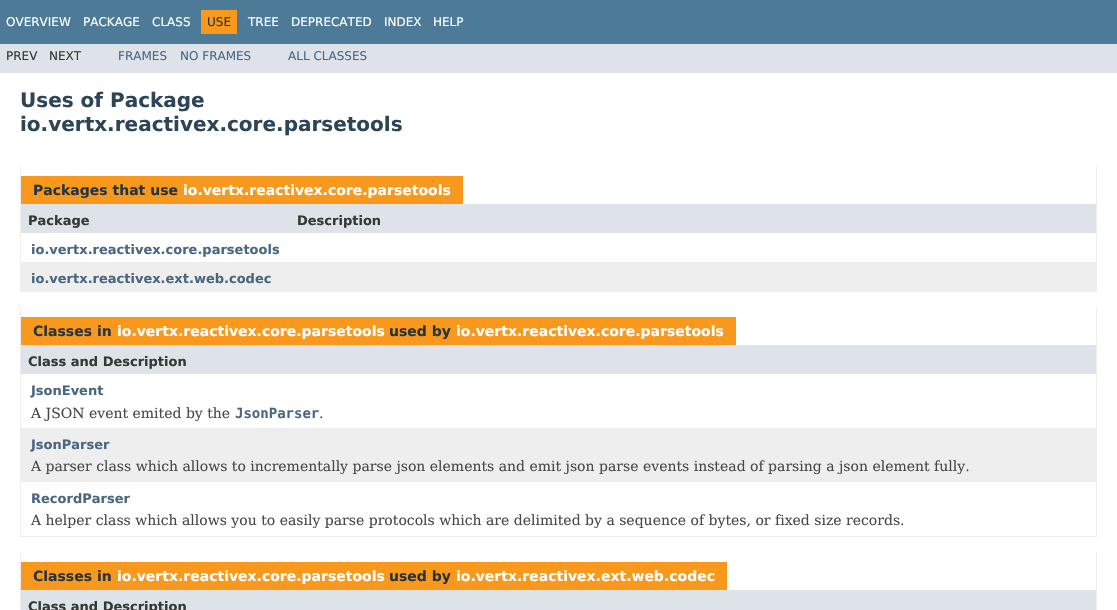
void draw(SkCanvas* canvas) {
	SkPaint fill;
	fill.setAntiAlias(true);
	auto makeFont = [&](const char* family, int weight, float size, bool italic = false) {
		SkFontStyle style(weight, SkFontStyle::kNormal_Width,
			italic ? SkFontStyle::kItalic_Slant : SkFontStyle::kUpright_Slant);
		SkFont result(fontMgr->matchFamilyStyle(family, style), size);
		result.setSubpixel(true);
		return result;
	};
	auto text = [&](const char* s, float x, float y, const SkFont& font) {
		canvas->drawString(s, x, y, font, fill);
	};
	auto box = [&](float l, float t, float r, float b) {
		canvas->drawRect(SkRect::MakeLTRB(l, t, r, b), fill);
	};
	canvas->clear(0xFFFFFFFF);
	fill.setColor(0xFF4D7A97);
	box(0, 0, 1117, 44);
	fill.setColor(0xFFF8981D);
	box(201, 10, 237, 34);
	fill.setColor(0xFFDEE3E9);
	box(0, 44, 1117, 73);
	fill.setColor(0xFFEEEEEE);
	box(1096, 166, 1097, 292);
	box(20, 291, 1097, 292);
	box(20, 166, 21, 292);
	fill.setColor(0xFFF8981D);
	box(21, 176, 463, 204);
	fill.setColor(0xFFDEE3E9);
	box(21, 204, 1096, 233);
	fill.setColor(0xFFEEEEEF);
	box(21, 262, 1096, 291);
	fill.setColor(0xFFEEEEEE);
	box(1096, 307, 1097, 537);
	box(20, 536, 1097, 537);
	box(20, 307, 21, 537);
	fill.setColor(0xFFF8981D);
	box(21, 317, 736, 345);
	fill.setColor(0xFFDEE3E9);
	box(21, 345, 1096, 374);
	fill.setColor(0xFFEEEEEF);
	box(21, 428, 1096, 482);
	fill.setColor(0xFFEEEEEE);
	box(1096, 552, 1097, 610);
	box(20, 552, 21, 610);
	fill.setColor(0xFFF8981D);
	box(21, 562, 727, 590);
	fill.setColor(0xFFDEE3E9);
	box(21, 590, 1096, 610);
	auto font1 = makeFont("DejaVu Sans", 400, 12);
	fill.setColor(0xFFFFFFFF);
	text("OVERVIEW", 6, 26, font1);
	text("PACKAGE", 83, 26, font1);
	text("CLASS", 152, 26, font1);
	fill.setColor(0xFF253441);
	text("USE", 207, 26, font1);
	fill.setColor(0xFFFFFFFF);
	text("TREE", 248, 26, font1);
	text("DEPRECATED", 291, 26, font1);
	text("INDEX", 384, 26, font1);
	text("HELP", 433, 26, font1);
	fill.setColor(0xFF353833);
	text("PREV", 6, 60, font1);
	text("NEXT", 49, 60, font1);
	fill.setColor(0xFF4A6782);
	text("FRAMES", 118, 60, font1);
	text("NO FRAMES", 180, 60, font1);
	text("ALL CLASSES", 288, 60, font1);
	auto font2 = makeFont("DejaVu Sans", 700, 20);
	fill.setColor(0xFF2C4557);
	text("Uses of Package", 20, 107, font2);
	text("io.vertx.reactivex.core.parsetools", 20, 131, font2);
	auto font3 = makeFont("DejaVu Sans", 700, 14);
	fill.setColor(0xFF253441);
	text("Packages that use", 33, 195, font3);
	fill.setColor(0xFFFFFFFF);
	text("io.vertx.reactivex.core.parsetools", 183, 195, font3);
	auto font4 = makeFont("DejaVu Sans", 700, 13);
	fill.setColor(0xFF353833);
	text("Package", 28, 225, font4);
	text("Description", 297, 225, font4);
	fill.setColor(0xFF4A6782);
	text("io.vertx.reactivex.core.parsetools", 31, 254, font4);
	text("io.vertx.reactivex.ext.web.codec", 31, 283, font4);
	fill.setColor(0xFF253441);
	text("Classes in", 33, 336, font3);
	fill.setColor(0xFFFFFFFF);
	text("io.vertx.reactivex.core.parsetools", 117, 336, font3);
	fill.setColor(0xFF253441);
	text("used by", 389, 336, font3);
	fill.setColor(0xFFFFFFFF);
	text("io.vertx.reactivex.core.parsetools", 456, 336, font3);
	fill.setColor(0xFF353833);
	text("Class and Description", 28, 366, font4);
	fill.setColor(0xFF4A6782);
	text("JsonEvent", 31, 395, font4);
	auto font5 = makeFont("DejaVu Serif", 400, 14);
	fill.setColor(0xFF474747);
	text("A JSON event emited by the", 31, 418, font5);
	auto font6 = makeFont("DejaVu Sans Mono", 700, 14);
	fill.setColor(0xFF4A6782);
	text("JsonParser", 235, 418, font6);
	fill.setColor(0xFF474747);
	text(".", 319, 418, font5);
	fill.setColor(0xFF4A6782);
	text("JsonParser", 31, 449, font4);
	fill.setColor(0xFF474747);
	text("A parser class which allows to incrementally parse json elements and emit json parse events instead of parsing a json element fully.", 31, 471, font5);
	fill.setColor(0xFF4A6782);
	text("RecordParser", 31, 503, font4);
	fill.setColor(0xFF474747);
	text("A helper class which allows you to easily parse protocols which are delimited by a sequence of bytes, or fixed size records.", 31, 525, font5);
	fill.setColor(0xFF253441);
	text("Classes in", 33, 581, font3);
	fill.setColor(0xFFFFFFFF);
	text("io.vertx.reactivex.core.parsetools", 117, 581, font3);
	fill.setColor(0xFF253441);
	text("used by", 389, 581, font3);
	fill.setColor(0xFFFFFFFF);
	text("io.vertx.reactivex.ext.web.codec", 456, 581, font3);
	fill.setColor(0xFF353833);
	text("Class and Description", 28, 611, font4);
}
